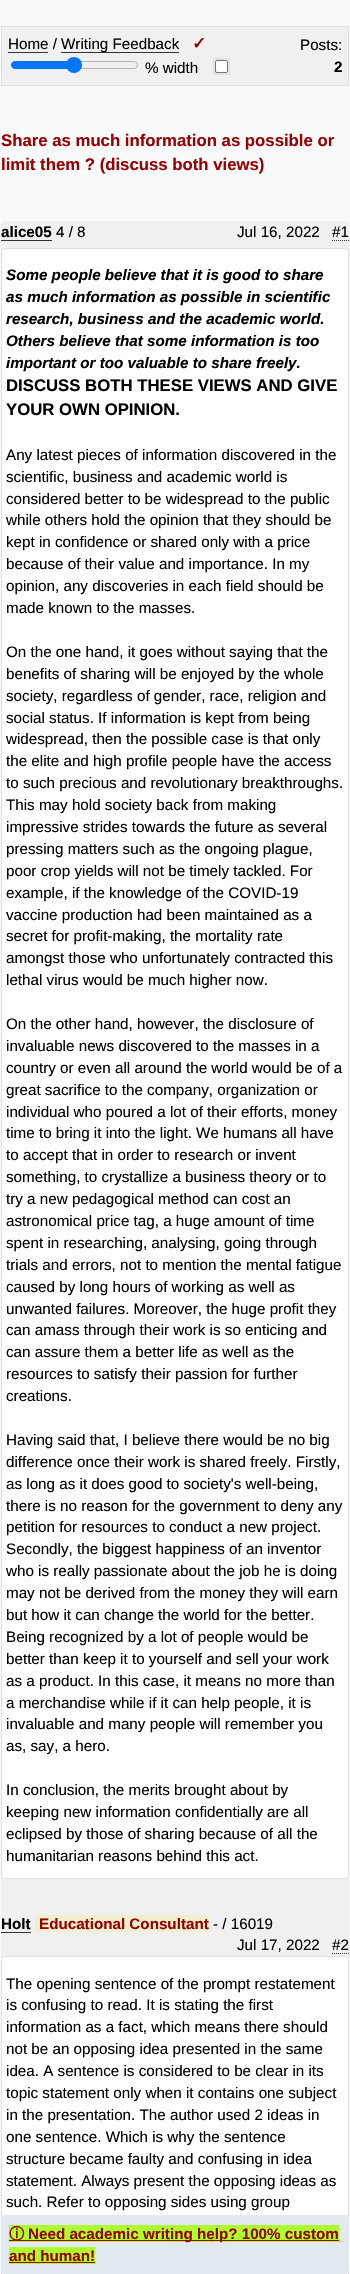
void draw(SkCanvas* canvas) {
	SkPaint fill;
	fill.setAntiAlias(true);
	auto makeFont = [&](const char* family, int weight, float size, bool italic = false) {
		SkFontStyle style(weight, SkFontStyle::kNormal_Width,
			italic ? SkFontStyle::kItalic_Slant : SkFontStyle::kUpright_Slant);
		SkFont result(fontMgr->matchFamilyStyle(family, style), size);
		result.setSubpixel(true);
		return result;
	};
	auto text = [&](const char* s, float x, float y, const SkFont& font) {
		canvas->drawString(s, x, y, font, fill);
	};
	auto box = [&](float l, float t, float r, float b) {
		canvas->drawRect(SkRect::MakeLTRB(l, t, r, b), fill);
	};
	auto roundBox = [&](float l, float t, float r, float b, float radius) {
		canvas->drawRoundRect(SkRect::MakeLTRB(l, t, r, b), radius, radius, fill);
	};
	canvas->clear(0xFFF7F9FB);
	fill.setColor(0xFFF0F0F0);
	canvas->drawRect(SkRect::MakeLTRB(1.5f, 26.5f, 348.5f, 85.5f), fill);
	fill.setStyle(SkPaint::kStroke_Style);
	fill.setStrokeWidth(1);
	fill.setColor(0xFFE0E0E0);
	canvas->drawRect(SkRect::MakeLTRB(1.5f, 26.5f, 348.5f, 85.5f), fill);
	fill.setStyle(SkPaint::kFill_Style);
	fill.setColor(0xFF333333);
	box(8, 52, 48, 53);
	box(61, 52, 179, 53);
	fill.setStyle(SkPaint::kStroke_Style);
	fill.setColor(0xFFB2B2B2);
	canvas->drawRoundRect(SkRect::MakeLTRB(11.5f, 61.5f, 137.5f, 68.5f), 3.5f, 3.5f, fill);
	fill.setStyle(SkPaint::kFill_Style);
	fill.setColor(0xFF0075FF);
	canvas->drawPath(SkPathBuilder().moveTo(15, 61).lineTo(74, 61).lineTo(74, 69).lineTo(15, 69).cubicTo(13, 69, 11, 67, 11, 65).cubicTo(11, 63, 13, 61, 15, 61).close().detach(), fill);
	canvas->drawCircle(74, 65, 8, fill);
	fill.setColor(0xFFFFFFFF);
	canvas->drawRoundRect(SkRect::MakeLTRB(215.5f, 60.5f, 227.5f, 72.5f), 1.5f, 1.5f, fill);
	fill.setStyle(SkPaint::kStroke_Style);
	fill.setColor(0xFF767676);
	canvas->drawRoundRect(SkRect::MakeLTRB(215.5f, 60.5f, 227.5f, 72.5f), 1.5f, 1.5f, fill);
	fill.setStrokeWidth(2);
	fill.setColor(0xFFE0E0E0);
	canvas->drawRect(SkRect::MakeLTRB(214, 59, 229, 74), fill);
	fill.setStyle(SkPaint::kFill_Style);
	fill.setColor(0xFFF0F0F0);
	roundBox(1, 221, 349, 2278, 4);
	fill.setColor(0xFF333333);
	box(1, 240, 52, 241);
	fill.setStyle(SkPaint::kStroke_Style);
	fill.setStrokeWidth(1);
	fill.setPathEffect(SkDashPathEffect::Make({{1, 1}}, 0));
	canvas->drawPath(SkPathBuilder().moveTo(332, 240.5f).lineTo(349, 240.5f).detach(), fill);
	fill.setPathEffect(nullptr);
	fill.setStyle(SkPaint::kFill_Style);
	fill.setColor(0xFFFFFFFF);
	canvas->drawRoundRect(SkRect::MakeLTRB(1.5f, 248.5f, 348.5f, 1878.5f), 3.5f, 3.5f, fill);
	fill.setStyle(SkPaint::kStroke_Style);
	fill.setColor(0xFFE0E0E0);
	canvas->drawRoundRect(SkRect::MakeLTRB(1.5f, 248.5f, 348.5f, 1878.5f), 3.5f, 3.5f, fill);
	fill.setStyle(SkPaint::kFill_Style);
	fill.setColor(0xFF333333);
	box(1, 1932, 31, 1933);
	fill.setColor(0xFFEFEECF);
	box(35, 1915, 209, 1932);
	fill.setStyle(SkPaint::kStroke_Style);
	fill.setColor(0xFF333333);
	fill.setPathEffect(SkDashPathEffect::Make({{1, 1}}, 0));
	canvas->drawPath(SkPathBuilder().moveTo(332, 1953.5f).lineTo(349, 1953.5f).detach(), fill);
	fill.setPathEffect(nullptr);
	fill.setStyle(SkPaint::kFill_Style);
	fill.setColor(0xFFFFFFFF);
	canvas->drawRoundRect(SkRect::MakeLTRB(1.5f, 1956.5f, 348.5f, 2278.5f), 3.5f, 3.5f, fill);
	fill.setStyle(SkPaint::kStroke_Style);
	fill.setColor(0xFFE0E0E0);
	canvas->drawRoundRect(SkRect::MakeLTRB(1.5f, 1956.5f, 348.5f, 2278.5f), 3.5f, 3.5f, fill);
	fill.setStyle(SkPaint::kFill_Style);
	fill.setColor(0xFFE1E9F1);
	roundBox(1, 2215, 349, 2274, 4);
	fill.setColor(0xFFADFF2F);
	box(9, 2225, 339, 2242);
	fill.setColor(0xFF990000);
	box(9, 2240, 339, 2241);
	fill.setColor(0xFFADFF2F);
	box(9, 2247, 95, 2264);
	fill.setColor(0xFF990000);
	box(9, 2262, 95, 2263);
	auto font1 = makeFont("Liberation Sans", 400, 15.2f);
	fill.setColor(0xFF000000);
	text("Home /", 8, 49, font1);
	text("Writing Feedback", 61, 49, font1);
	auto font2 = makeFont("DejaVu Sans", 700, 16.75f);
	fill.setColor(0xFF990000);
	text("✓", 192, 49, font2);
	fill.setColor(0xFF000000);
	text("% width", 145, 73, font1);
	text("Posts:", 300, 50, font1);
	auto font3 = makeFont("Liberation Sans", 700, 15.2f);
	text("2", 334, 72, font3);
	auto font4 = makeFont("Liberation Sans", 700, 16.75f);
	fill.setColor(0xFF990000);
	text("Share as much information as possible or", 1, 146, font4);
	text("limit them ? (discuss both views)", 1, 170, font4);
	fill.setColor(0xFF000000);
	text("alice05", 1, 237, font3);
	text("4 / 8", 56, 237, font1);
	text("Jul 16, 2022", 237, 237, font1);
	text("#1", 332, 237, font1);
	auto font5 = makeFont("Liberation Sans", 700, 15.2f, true);
	text("Some people believe that it is good to share", 6, 280, font5);
	text("as much information as possible in scientific", 6, 302, font5);
	text("research, business and the academic world.", 6, 324, font5);
	text("Others believe that some information is too", 6, 346, font5);
	text("important or too valuable to share freely.", 6, 368, font5);
	text("DISCUSS BOTH THESE VIEWS AND GIVE", 6, 391, font4);
	text("YOUR OWN OPINION.", 6, 415, font4);
	text("Any latest pieces of information discovered in the", 6, 460, font1);
	text("scientific, business and academic world is", 6, 482, font1);
	text("considered better to be widespread to the public", 6, 504, font1);
	text("while others hold the opinion that they should be", 6, 525, font1);
	text("kept in confidence or shared only with a price", 6, 547, font1);
	text("because of their value and importance. In my", 6, 569, font1);
	text("opinion, any discoveries in each field should be", 6, 591, font1);
	text("made known to the masses.", 6, 613, font1);
	text("On the one hand, it goes without saying that the", 6, 657, font1);
	text("benefits of sharing will be enjoyed by the whole", 6, 679, font1);
	text("society, regardless of gender, race, religion and", 6, 701, font1);
	text("social status. If information is kept from being", 6, 723, font1);
	text("widespread, then the possible case is that only", 6, 744, font1);
	text("the elite and high profile people have the access", 6, 766, font1);
	text("to such precious and revolutionary breakthroughs.", 6, 788, font1);
	text("This may hold society back from making", 6, 810, font1);
	text("impressive strides towards the future as several", 6, 832, font1);
	text("pressing matters such as the ongoing plague,", 6, 854, font1);
	text("poor crop yields will not be timely tackled. For", 6, 876, font1);
	text("example, if the knowledge of the COVID-19", 6, 898, font1);
	text("vaccine production had been maintained as a", 6, 920, font1);
	text("secret for profit-making, the mortality rate", 6, 941, font1);
	text("amongst those who unfortunately contracted this", 6, 963, font1);
	text("lethal virus would be much higher now.", 6, 985, font1);
	text("On the other hand, however, the disclosure of", 6, 1029, font1);
	text("invaluable news discovered to the masses in a", 6, 1051, font1);
	text("country or even all around the world would be of a", 6, 1073, font1);
	text("great sacrifice to the company, organization or", 6, 1095, font1);
	text("individual who poured a lot of their efforts, money", 6, 1117, font1);
	text("time to bring it into the light. We humans all have", 6, 1138, font1);
	text("to accept that in order to research or invent", 6, 1160, font1);
	text("something, to crystallize a business theory or to", 6, 1182, font1);
	text("try a new pedagogical method can cost an", 6, 1204, font1);
	text("astronomical price tag, a huge amount of time", 6, 1226, font1);
	text("spent in researching, analysing, going through", 6, 1248, font1);
	text("trials and errors, not to mention the mental fatigue", 6, 1270, font1);
	text("caused by long hours of working as well as", 6, 1292, font1);
	text("unwanted failures. Moreover, the huge profit they", 6, 1314, font1);
	text("can amass through their work is so enticing and", 6, 1335, font1);
	text("can assure them a better life as well as the", 6, 1357, font1);
	text("resources to satisfy their passion for further", 6, 1379, font1);
	text("creations.", 6, 1401, font1);
	text("Having said that, I believe there would be no big", 6, 1445, font1);
	text("difference once their work is shared freely. Firstly,", 6, 1467, font1);
	text("as long as it does good to society's well-being,", 6, 1489, font1);
	text("there is no reason for the government to deny any", 6, 1511, font1);
	text("petition for resources to conduct a new project.", 6, 1532, font1);
	text("Secondly, the biggest happiness of an inventor", 6, 1554, font1);
	text("who is really passionate about the job he is doing", 6, 1576, font1);
	text("may not be derived from the money they will earn", 6, 1598, font1);
	text("but how it can change the world for the better.", 6, 1620, font1);
	text("Being recognized by a lot of people would be", 6, 1642, font1);
	text("better than keep it to yourself and sell your work", 6, 1664, font1);
	text("as a product. In this case, it means no more than", 6, 1686, font1);
	text("a merchandise while if it can help people, it is", 6, 1708, font1);
	text("invaluable and many people will remember you", 6, 1729, font1);
	text("as, say, a hero.", 6, 1751, font1);
	text("In conclusion, the merits brought about by", 6, 1795, font1);
	text("keeping new information confidentially are all", 6, 1817, font1);
	text("eclipsed by those of sharing because of all the", 6, 1839, font1);
	text("humanitarian reasons behind this act.", 6, 1861, font1);
	text("Holt", 1, 1929, font3);
	fill.setColor(0xFF990000);
	text("Educational Consultant", 39, 1929, font3);
	fill.setColor(0xFF000000);
	text("- / 16019", 213, 1929, font1);
	text("Jul 17, 2022", 237, 1950, font1);
	text("#2", 332, 1950, font1);
	text("The opening sentence of the prompt restatement", 6, 1989, font1);
	text("is confusing to read. It is stating the first", 6, 2010, font1);
	text("information as a fact, which means there should", 6, 2032, font1);
	text("not be an opposing idea presented in the same", 6, 2054, font1);
	text("idea. A sentence is considered to be clear in its", 6, 2076, font1);
	text("topic statement only when it contains one subject", 6, 2098, font1);
	text("in the presentation. The author used 2 ideas in", 6, 2120, font1);
	text("one sentence. Which is why the sentence", 6, 2142, font1);
	text("structure became faulty and confusing in idea", 6, 2164, font1);
	text("statement. Always present the opposing ideas as", 6, 2186, font1);
	text("such. Refer to opposing sides using group", 6, 2207, font1);
	auto font6 = makeFont("WenQuanYi Zen Hei", 700, 15.2f);
	fill.setColor(0xFF990000);
	text("ⓘ", 9, 2239, font6);
	text("Need academic writing help? 100% custom", 28, 2239, font3);
	text("and human!", 9, 2261, font3);
}
